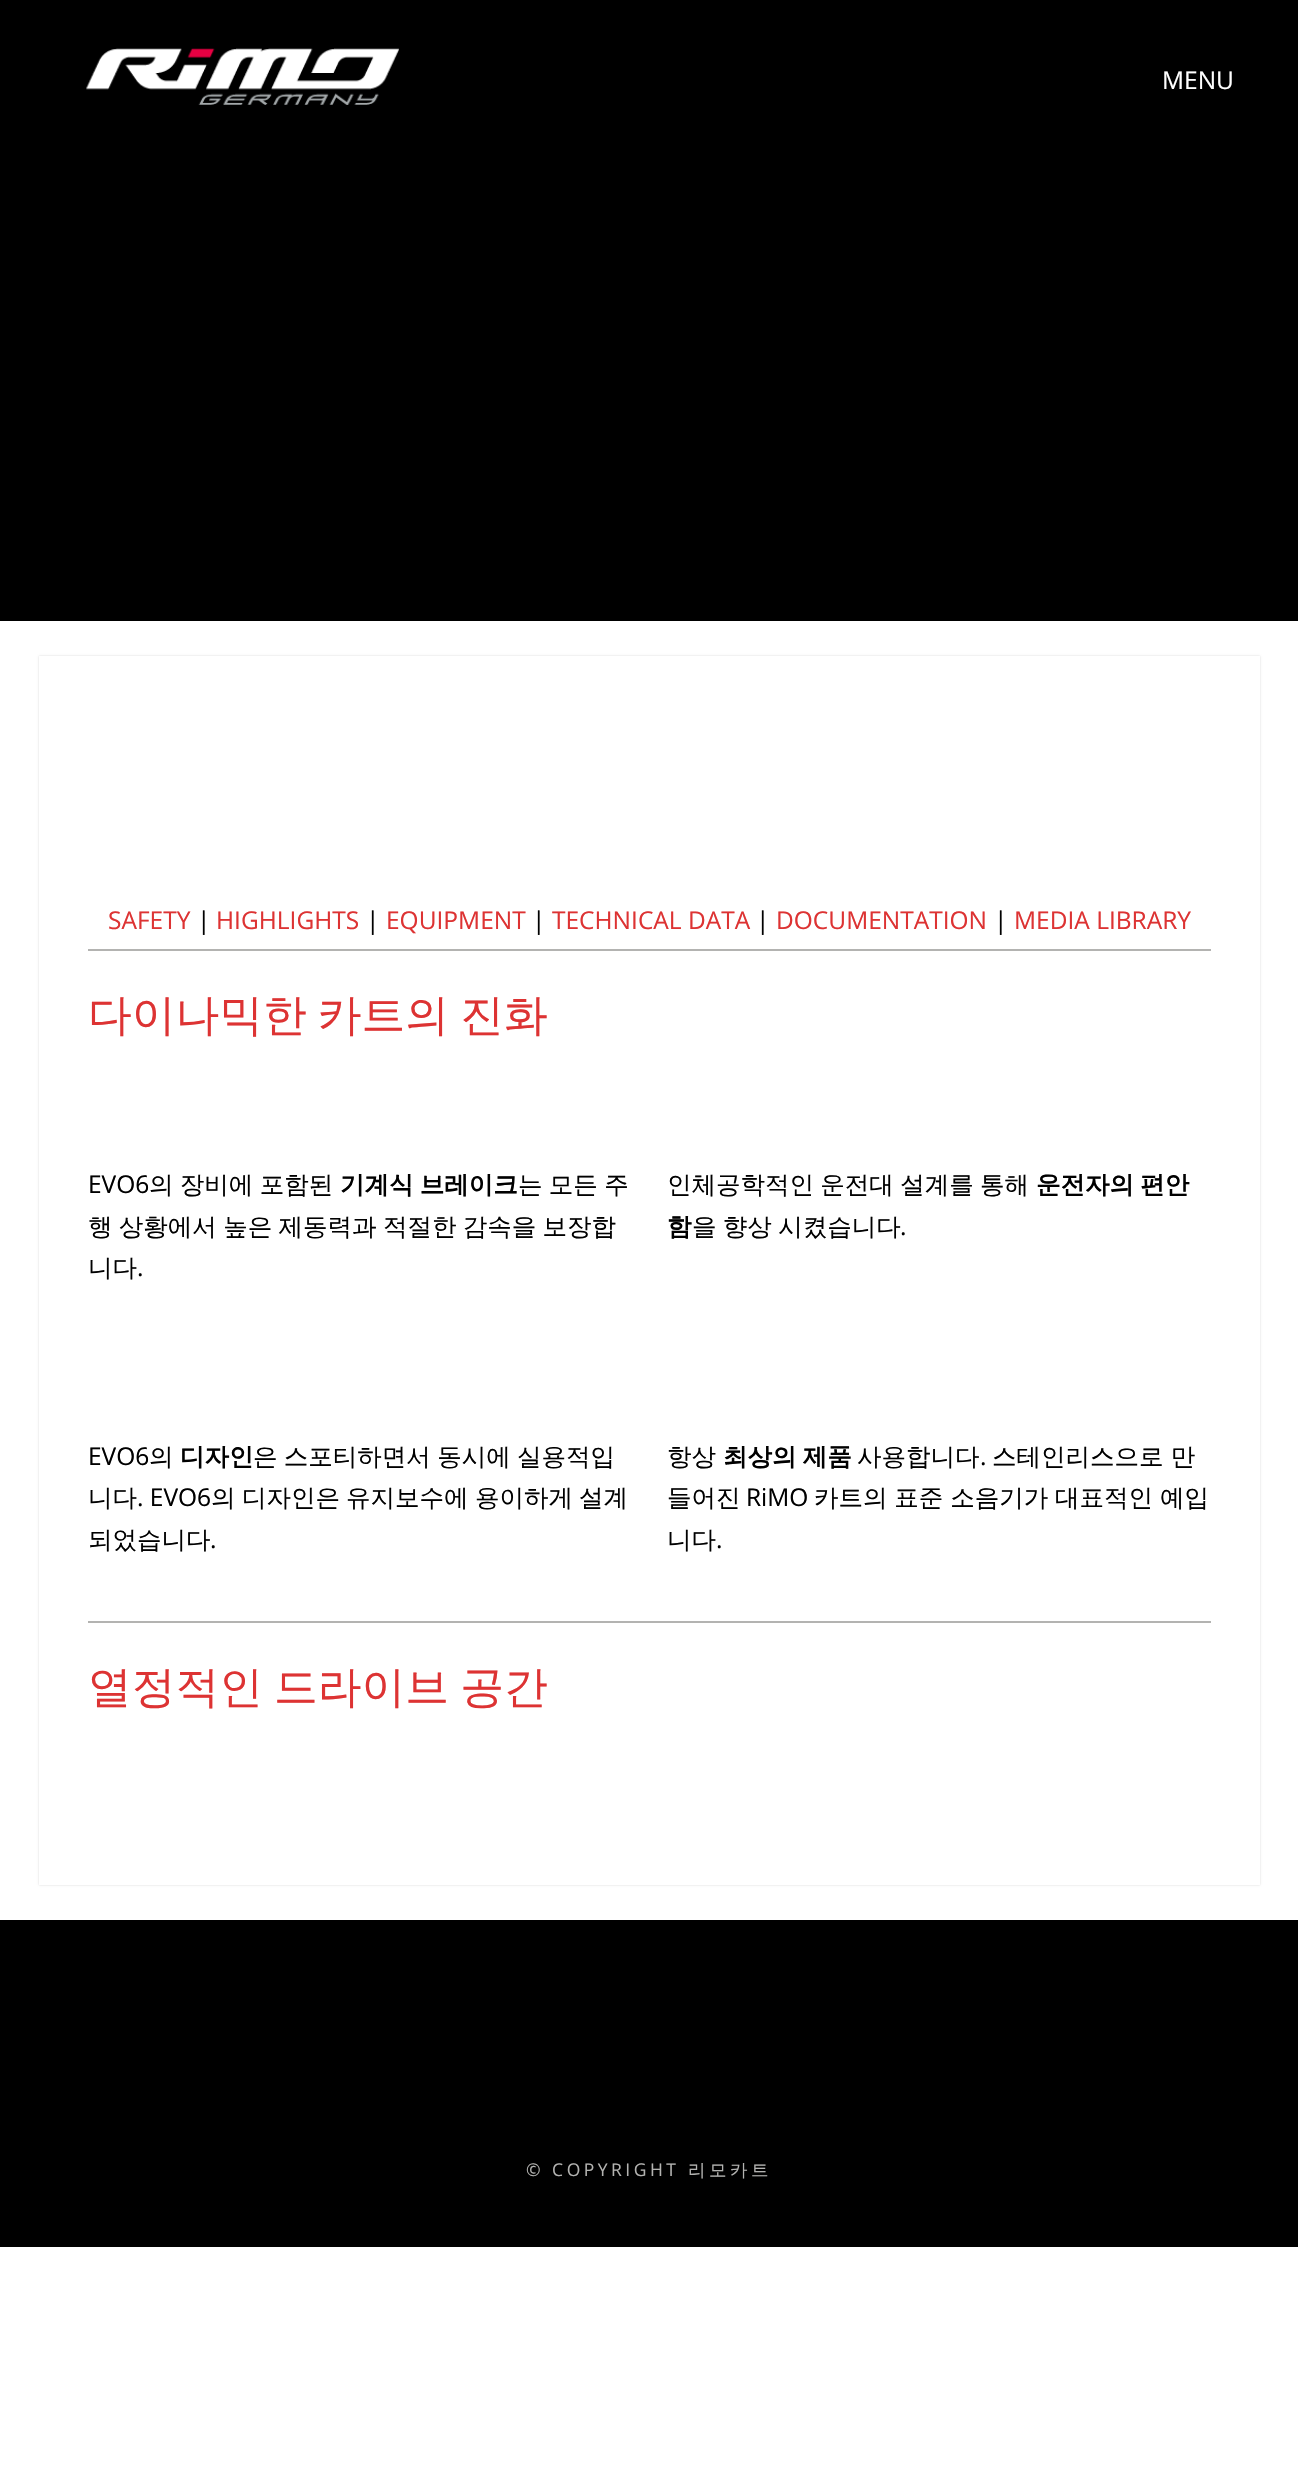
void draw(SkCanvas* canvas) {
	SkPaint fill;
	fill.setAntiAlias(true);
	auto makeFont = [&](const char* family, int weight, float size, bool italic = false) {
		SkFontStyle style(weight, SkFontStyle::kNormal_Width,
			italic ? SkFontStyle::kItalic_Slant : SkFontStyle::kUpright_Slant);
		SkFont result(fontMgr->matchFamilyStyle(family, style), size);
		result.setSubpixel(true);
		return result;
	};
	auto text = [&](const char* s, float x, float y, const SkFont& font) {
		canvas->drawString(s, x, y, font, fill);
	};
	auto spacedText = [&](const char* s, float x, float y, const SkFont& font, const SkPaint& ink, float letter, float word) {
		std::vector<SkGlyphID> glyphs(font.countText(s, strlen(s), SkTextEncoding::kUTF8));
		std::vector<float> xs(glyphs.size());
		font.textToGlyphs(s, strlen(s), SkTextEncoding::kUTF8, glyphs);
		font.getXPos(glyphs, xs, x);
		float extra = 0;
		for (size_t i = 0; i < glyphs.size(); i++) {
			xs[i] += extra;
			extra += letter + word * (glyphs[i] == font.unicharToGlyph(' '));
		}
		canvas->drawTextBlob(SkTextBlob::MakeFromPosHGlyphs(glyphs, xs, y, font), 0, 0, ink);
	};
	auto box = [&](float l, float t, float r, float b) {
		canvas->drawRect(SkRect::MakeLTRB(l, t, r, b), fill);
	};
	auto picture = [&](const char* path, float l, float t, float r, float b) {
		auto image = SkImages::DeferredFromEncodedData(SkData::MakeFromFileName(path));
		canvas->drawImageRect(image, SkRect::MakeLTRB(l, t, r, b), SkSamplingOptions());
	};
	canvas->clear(0xFFFFFFFF);
	fill.setColor(0xFF000000);
	box(0, 0, 1298, 621);
	picture("image0.png", 86, 48, 399, 105);
	fill.setColor(0x26000000);
	fill.setMaskFilter(SkMaskFilter::MakeBlur(kNormal_SkBlurStyle, 1));
	canvas->drawRect(SkRect::MakeLTRB(39, 656, 1260, 1885), fill);
	fill.setMaskFilter(nullptr);
	fill.setColor(0xFFFFFFFF);
	box(39, 656, 1260, 1885);
	fill.setColor(0xFFB3B3B1);
	box(88, 949, 1211, 951);
	box(88, 1621, 1211, 1623);
	fill.setColor(0xFF000000);
	box(0, 1920, 1298, 2247);
	auto font1 = makeFont("Open Sans", 400, 24.5f);
	fill.setColor(0xFFFFFFFF);
	text("MENU", 1162, 89, font1);
	fill.setColor(0xFFDD3333);
	text("SAFETY", 108, 929, font1);
	fill.setColor(0xFF000000);
	text("|", 197, 929, font1);
	fill.setColor(0xFFDD3333);
	text("HIGHLIGHTS", 216, 929, font1);
	fill.setColor(0xFF000000);
	text("|", 366, 929, font1);
	fill.setColor(0xFFDD3333);
	text("EQUIPMENT", 386, 929, font1);
	fill.setColor(0xFF000000);
	text("|", 532, 929, font1);
	fill.setColor(0xFFDD3333);
	text("TECHNICAL DATA", 552, 929, font1);
	fill.setColor(0xFF000000);
	text("|", 756, 929, font1);
	fill.setColor(0xFFDD3333);
	text("DOCUMENTATION", 776, 929, font1);
	fill.setColor(0xFF000000);
	text("|", 994, 929, font1);
	fill.setColor(0xFFDD3333);
	text("MEDIA LIBRARY", 1014, 929, font1);
	auto font2 = makeFont("WenQuanYi Zen Hei", 500, 43.75f);
	spacedText("다이나믹한 카트의 진화", 88, 1030, font2, fill, 0, -2);
	fill.setColor(0xFF000000);
	text("EVO6", 88, 1193, font1);
	auto font3 = makeFont("WenQuanYi Zen Hei", 500, 24.5f);
	spacedText("의 장비에 포함된", 149, 1193, font3, fill, 0, -1);
	auto font4 = makeFont("WenQuanYi Zen Hei", 700, 24.5f);
	spacedText("기계식 브레이크", 340, 1193, font4, fill, 0, -1);
	spacedText("는 모든 주", 518, 1193, font3, fill, 0, -1);
	spacedText("행 상황에서 높은 제동력과 적절한 감속을 보장합", 88, 1235, font3, fill, 0, -1);
	text("니다", 88, 1276, font3);
	text(".", 137, 1276, font1);
	spacedText("인체공학적인 운전대 설계를 통해", 667, 1193, font3, fill, 0, -1);
	spacedText("운전자의 편안", 1036, 1193, font4, fill, 0, -1);
	text("함", 667, 1235, font4);
	spacedText("을 향상 시켰습니다", 692, 1235, font3, fill, 0, -1);
	text(".", 900, 1235, font1);
	text("EVO6", 88, 1465, font1);
	text("의", 149, 1465, font3);
	text("디자인", 180, 1465, font4);
	spacedText("은 스포티하면서 동시에 실용적입", 253, 1465, font3, fill, 0, -1);
	text("니다", 88, 1506, font3);
	text(". EVO6", 137, 1506, font1);
	text("의", 211, 1506, font3);
	text("디자인은", 242, 1506, font3);
	text("유지보수에", 346, 1506, font3);
	text("용이하게", 475, 1506, font3);
	text("설계", 579, 1506, font3);
	text("되었습니다", 88, 1548, font3);
	text(".", 210, 1548, font1);
	text("항상", 667, 1465, font3);
	spacedText("최상의 제품", 723, 1465, font4, fill, 0, -1);
	text("사용합니다", 857, 1465, font3);
	text(".", 980, 1465, font1);
	text("스테인리스으로 만", 992, 1465, font3);
	text("들어진", 667, 1506, font3);
	text("RiMO", 746, 1506, font1);
	spacedText("카트의 표준 소음기가 대표적인 예입", 814, 1506, font3, fill, 0, -0.5f);
	text("니다", 667, 1548, font3);
	text(".", 716, 1548, font1);
	fill.setColor(0xFFDD3333);
	spacedText("열정적인 드라이브 공간", 88, 1702, font2, fill, 0, -2);
	auto font5 = makeFont("Open Sans", 400, 17.5f);
	fill.setColor(0xFFB3B3B1);
	spacedText("© COPYRIGHT", 526, 2176, font5, fill, 3.5f, 0);
	auto font6 = makeFont("WenQuanYi Zen Hei", 500, 17.5f);
	spacedText("리모카트", 688, 2176, font6, fill, 3.5f, 0);
}
